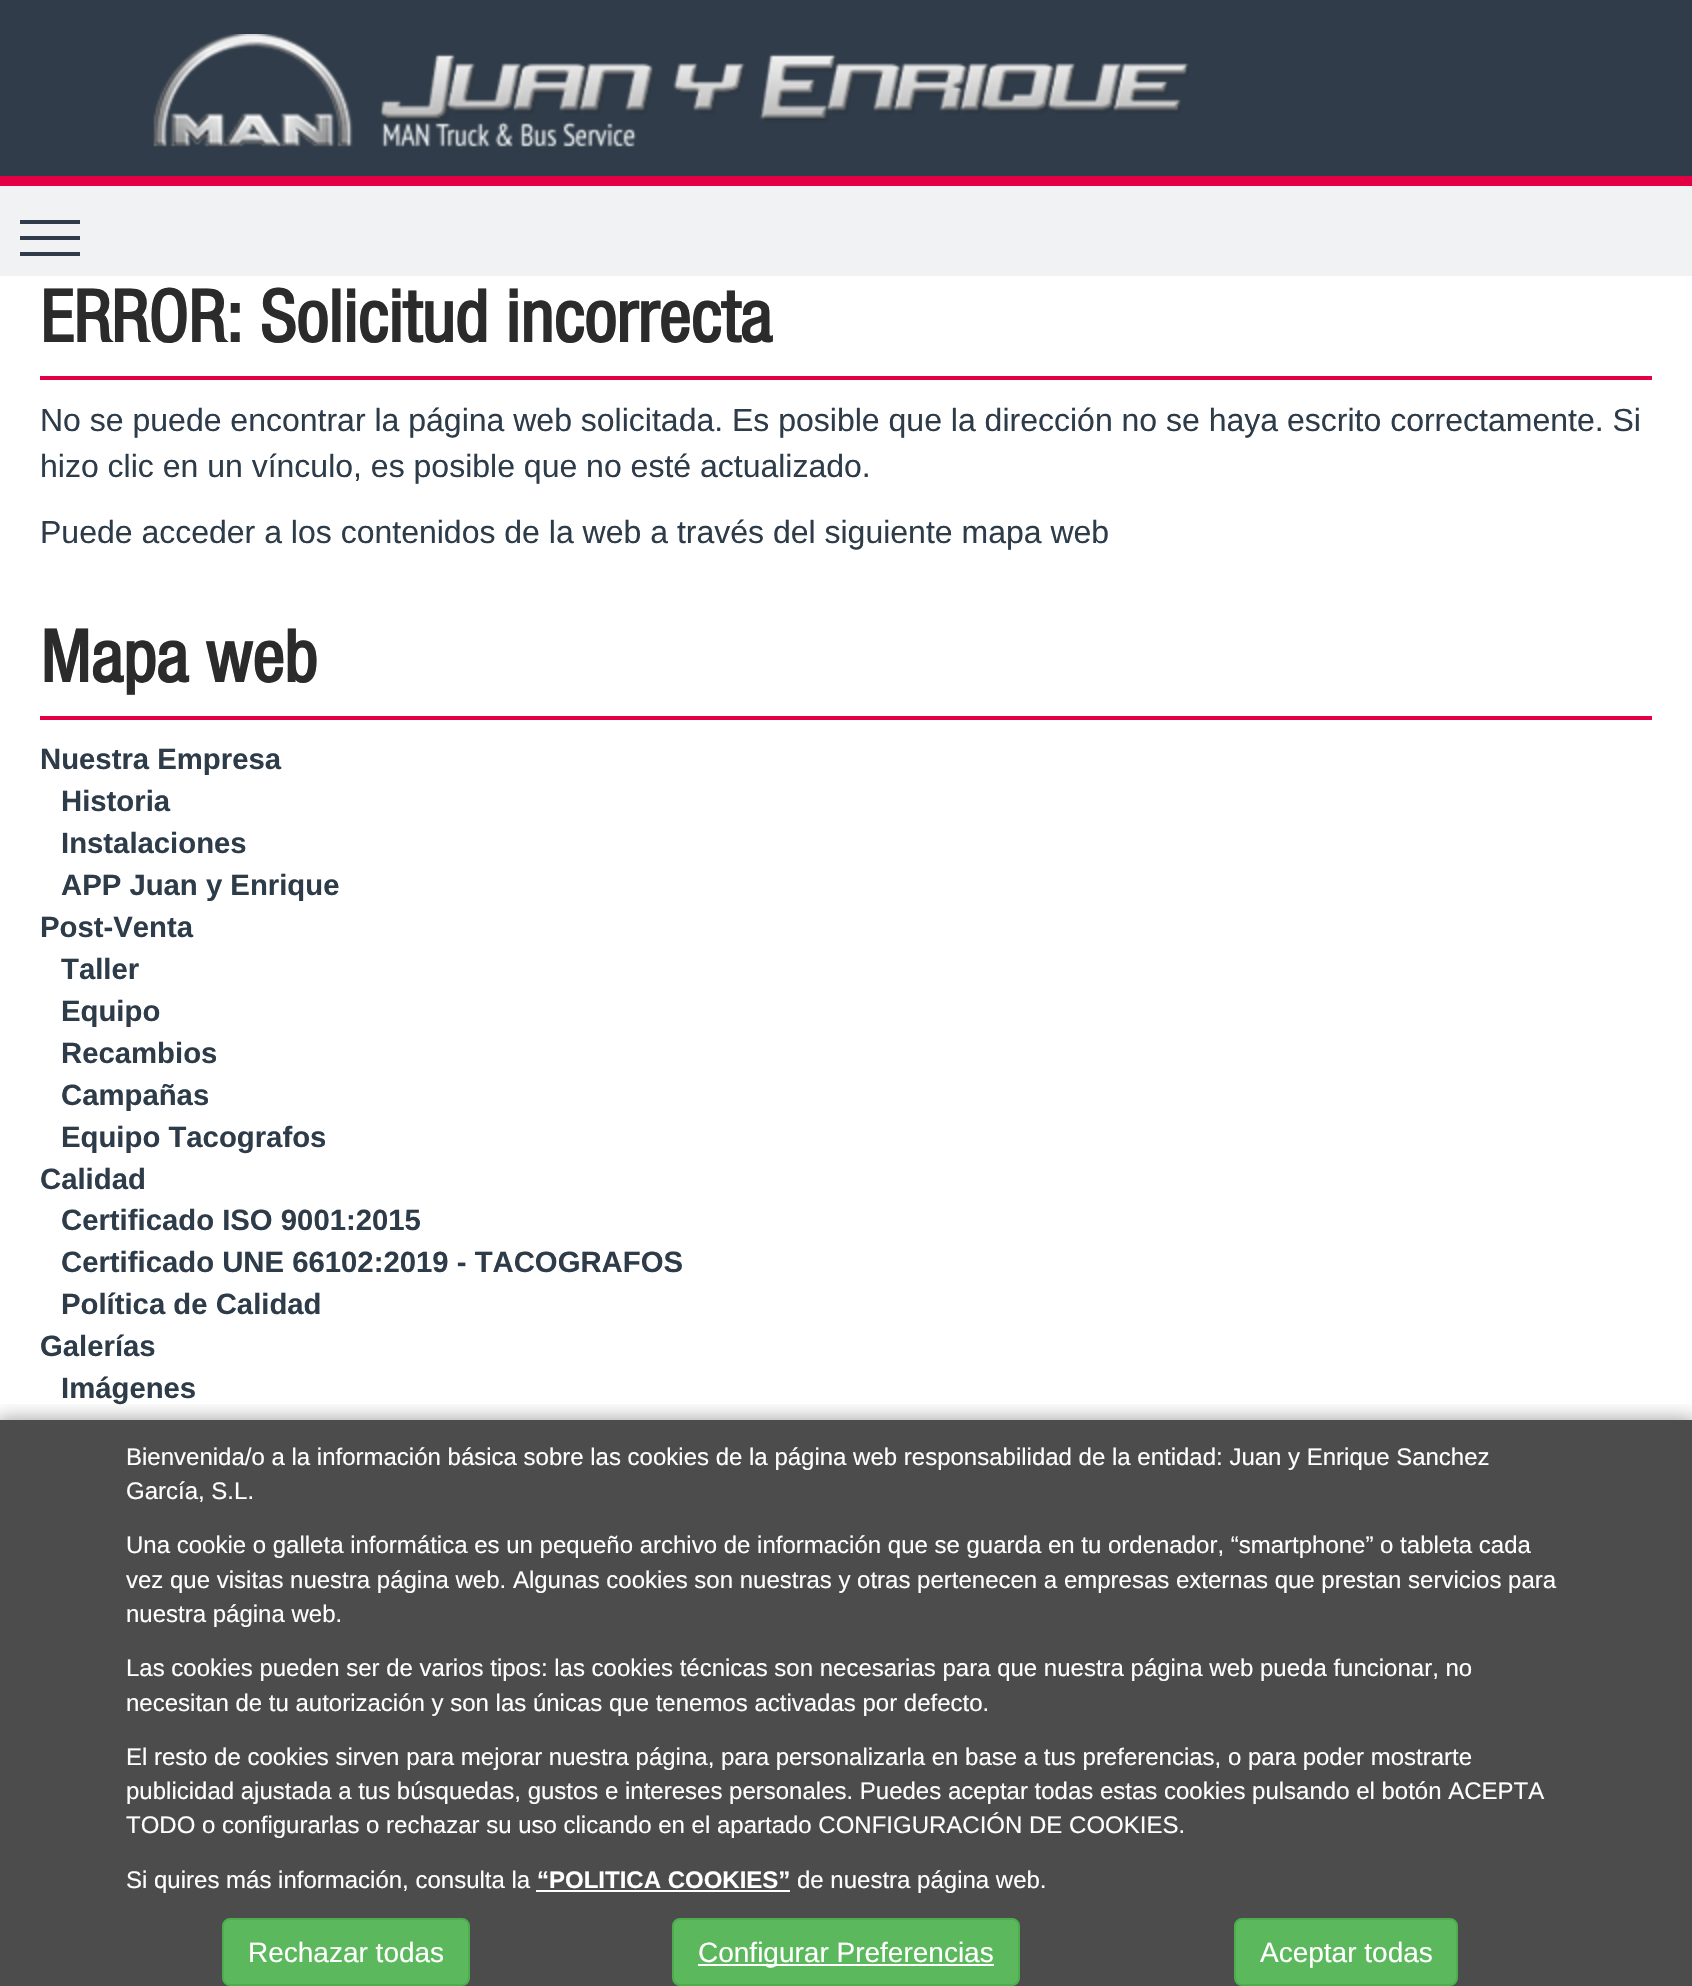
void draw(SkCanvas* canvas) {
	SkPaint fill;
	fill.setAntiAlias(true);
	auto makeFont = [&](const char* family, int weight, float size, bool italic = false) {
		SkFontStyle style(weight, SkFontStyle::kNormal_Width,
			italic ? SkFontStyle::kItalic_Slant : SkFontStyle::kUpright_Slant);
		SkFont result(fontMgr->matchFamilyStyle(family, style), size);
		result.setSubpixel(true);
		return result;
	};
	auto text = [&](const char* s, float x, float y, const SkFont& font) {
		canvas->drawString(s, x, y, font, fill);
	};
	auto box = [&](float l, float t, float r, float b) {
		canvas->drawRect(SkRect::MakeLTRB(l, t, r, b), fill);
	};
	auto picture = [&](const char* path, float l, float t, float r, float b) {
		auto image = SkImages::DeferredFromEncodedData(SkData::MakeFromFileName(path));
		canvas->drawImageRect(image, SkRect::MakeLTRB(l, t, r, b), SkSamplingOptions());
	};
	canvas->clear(0xFFFFFFFF);
	fill.setColor(0xFF303C49);
	box(0, 0, 1692, 176);
	fill.setColor(0xFFE40045);
	box(0, 176, 1692, 186);
	picture("image0.png", 153, 34, 1189, 147);
	fill.setColor(0xFFF1F2F3);
	box(0, 186, 1692, 276);
	fill.setColor(0xFF303C49);
	box(20, 220, 80, 224);
	box(20, 252, 80, 256);
	box(20, 236, 80, 240);
	fill.setColor(0xFFE40045);
	box(40, 376, 1652, 380);
	box(40, 716, 1652, 720);
	canvas->save();
	canvas->clipRect(SkRect::MakeLTRB(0, 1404, 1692, 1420));
	fill.setColor(0x66000000);
	fill.setMaskFilter(SkMaskFilter::MakeBlur(kNormal_SkBlurStyle, 10));
	canvas->drawRect(SkRect::MakeLTRB(-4, 1420, 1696, 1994), fill);
	fill.setMaskFilter(nullptr);
	canvas->restore();
	fill.setColor(0xB3000000);
	box(0, 1420, 1692, 1986);
	fill.setColor(0xFFFFFFFF);
	box(536, 1890, 790, 1892);
	fill.setColor(0xFF5CB85C);
	canvas->drawRoundRect(SkRect::MakeLTRB(223, 1919, 469, 1985), 7, 7, fill);
	fill.setStyle(SkPaint::kStroke_Style);
	fill.setStrokeWidth(2);
	fill.setColor(0xFF4CAE4C);
	canvas->drawRoundRect(SkRect::MakeLTRB(223, 1919, 469, 1985), 7, 7, fill);
	fill.setStyle(SkPaint::kFill_Style);
	fill.setColor(0xFF5CB85C);
	canvas->drawRoundRect(SkRect::MakeLTRB(673, 1919, 1019, 1985), 7, 7, fill);
	fill.setStyle(SkPaint::kStroke_Style);
	fill.setColor(0xFF4CAE4C);
	canvas->drawRoundRect(SkRect::MakeLTRB(673, 1919, 1019, 1985), 7, 7, fill);
	fill.setStyle(SkPaint::kFill_Style);
	fill.setColor(0xFFFFFFFF);
	box(698, 1964, 994, 1966);
	fill.setColor(0xFF5CB85C);
	canvas->drawRoundRect(SkRect::MakeLTRB(1235, 1919, 1457, 1985), 7, 7, fill);
	fill.setStyle(SkPaint::kStroke_Style);
	fill.setColor(0xFF4CAE4C);
	canvas->drawRoundRect(SkRect::MakeLTRB(1235, 1919, 1457, 1985), 7, 7, fill);
	auto font1 = makeFont("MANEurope", 700, 72);
	fill.setStyle(SkPaint::kFill_Style);
	fill.setColor(0xFF2B2B2B);
	text("ERROR: Solicitud incorrecta", 40, 342, font1);
	auto font2 = makeFont("Liberation Sans", 400, 32);
	fill.setColor(0xFF2E3C4A);
	text("No se puede encontrar la página web solicitada. Es posible que la dirección no se haya escrito correctamente. Si", 40, 431, font2);
	text("hizo clic en un vínculo, es posible que no esté actualizado.", 40, 477, font2);
	text("Puede acceder a los contenidos de la web a través del siguiente mapa web", 40, 543, font2);
	fill.setColor(0xFF2B2B2B);
	text("Mapa web", 40, 682, font1);
	auto font3 = makeFont("Liberation Sans", 700, 29.3f);
	fill.setColor(0xFF2E3C4A);
	text("Nuestra Empresa", 40, 769, font3);
	text("Historia", 61, 811, font3);
	text("Instalaciones", 61, 853, font3);
	text("APP Juan y Enrique", 61, 895, font3);
	text("Post-Venta", 40, 937, font3);
	text("Taller", 61, 979, font3);
	text("Equipo", 61, 1021, font3);
	text("Recambios", 61, 1063, font3);
	text("Campañas", 61, 1105, font3);
	text("Equipo Tacografos", 61, 1147, font3);
	text("Calidad", 40, 1189, font3);
	text("Certificado ISO 9001:2015", 61, 1230, font3);
	text("Certificado UNE 66102:2019 - TACOGRAFOS", 61, 1272, font3);
	text("Política de Calidad", 61, 1314, font3);
	text("Galerías", 40, 1356, font3);
	text("Imágenes", 61, 1398, font3);
	auto font4 = makeFont("Liberation Sans", 400, 24);
	fill.setColor(0xFFFFFFFF);
	text("Bienvenida/o a la información básica sobre las cookies de la página web responsabilidad de la entidad: Juan y Enrique Sanchez", 126, 1465, font4);
	text("García, S.L.", 126, 1499, font4);
	text("Una cookie o galleta informática es un pequeño archivo de información que se guarda en tu ordenador, “smartphone” o tableta cada", 126, 1553, font4);
	text("vez que visitas nuestra página web. Algunas cookies son nuestras y otras pertenecen a empresas externas que prestan servicios para", 126, 1588, font4);
	text("nuestra página web.", 126, 1622, font4);
	text("Las cookies pueden ser de varios tipos: las cookies técnicas son necesarias para que nuestra página web pueda funcionar, no", 126, 1676, font4);
	text("necesitan de tu autorización y son las únicas que tenemos activadas por defecto.", 126, 1711, font4);
	text("El resto de cookies sirven para mejorar nuestra página, para personalizarla en base a tus preferencias, o para poder mostrarte", 126, 1765, font4);
	text("publicidad ajustada a tus búsquedas, gustos e intereses personales. Puedes aceptar todas estas cookies pulsando el botón ACEPTA", 126, 1799, font4);
	text("TODO o configurarlas o rechazar su uso clicando en el apartado CONFIGURACIÓN DE COOKIES.", 126, 1833, font4);
	text("Si quires más información, consulta la", 126, 1888, font4);
	auto font5 = makeFont("Liberation Sans", 700, 24);
	text("“POLITICA COOKIES”", 537, 1888, font5);
	text("de nuestra página web.", 797, 1888, font4);
	auto font6 = makeFont("Liberation Sans", 400, 28);
	text("Rechazar todas", 248, 1962, font6);
	text("Configurar Preferencias", 698, 1962, font6);
	text("Aceptar todas", 1260, 1962, font6);
}
